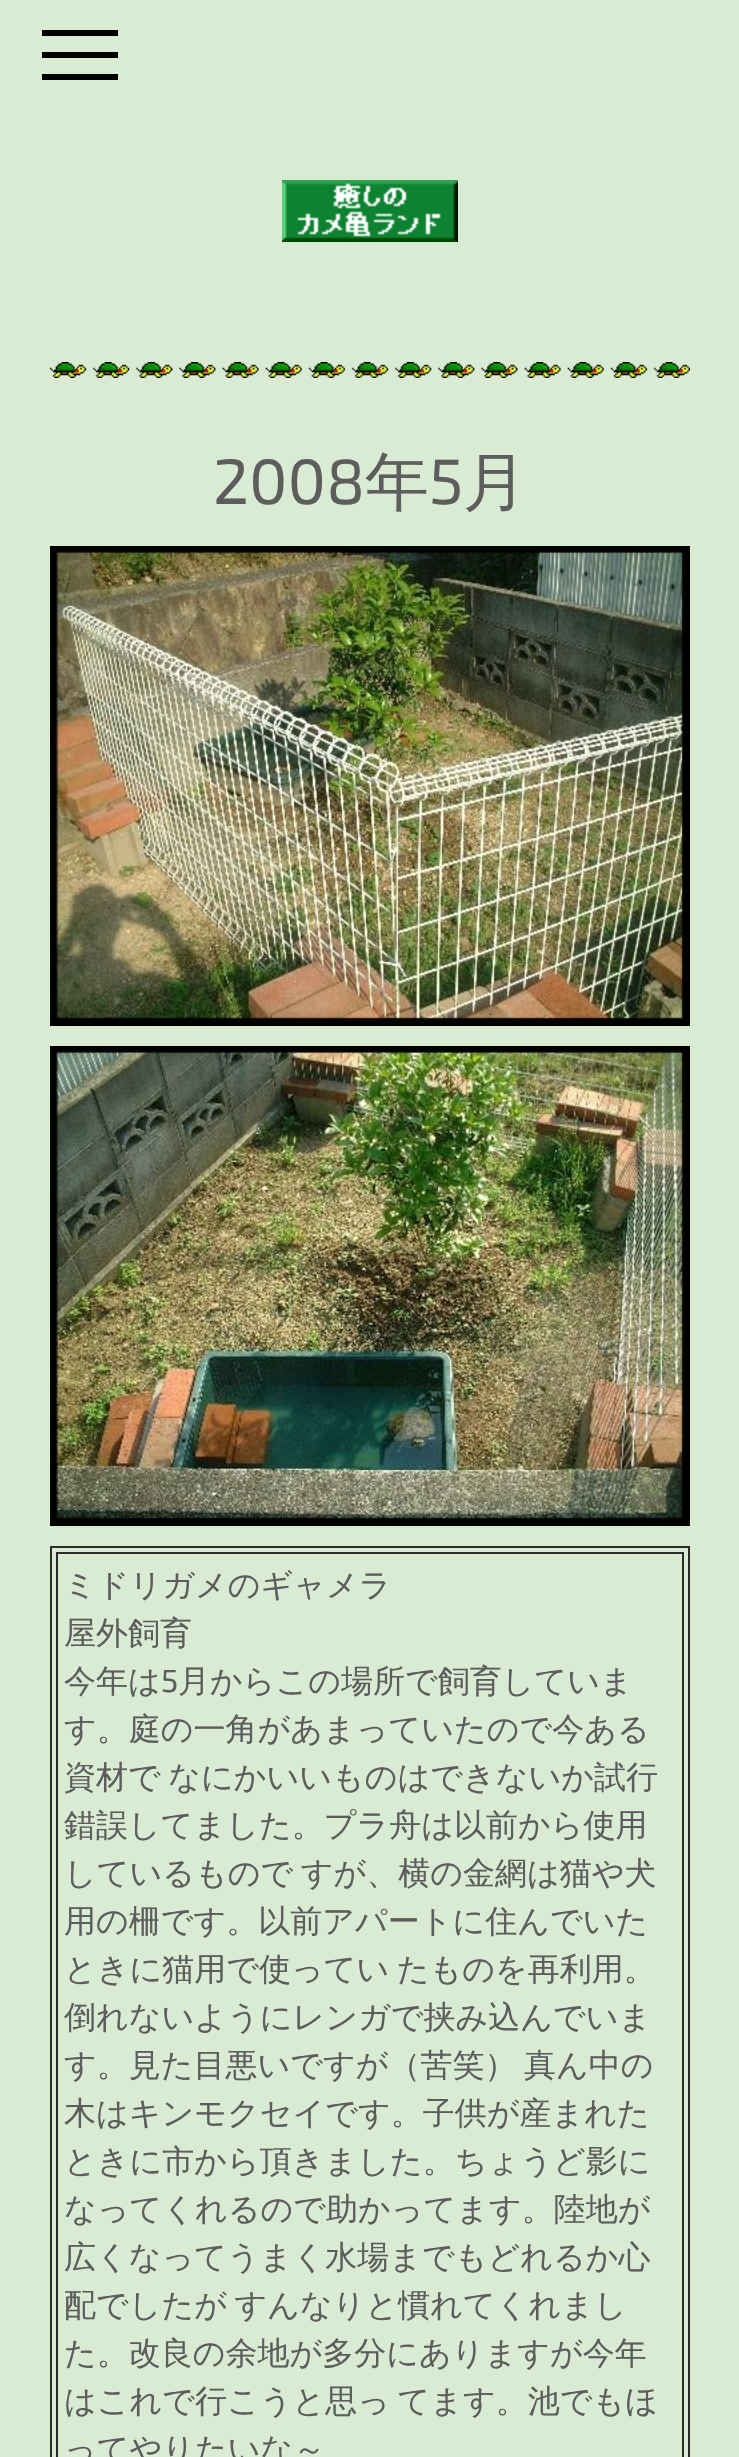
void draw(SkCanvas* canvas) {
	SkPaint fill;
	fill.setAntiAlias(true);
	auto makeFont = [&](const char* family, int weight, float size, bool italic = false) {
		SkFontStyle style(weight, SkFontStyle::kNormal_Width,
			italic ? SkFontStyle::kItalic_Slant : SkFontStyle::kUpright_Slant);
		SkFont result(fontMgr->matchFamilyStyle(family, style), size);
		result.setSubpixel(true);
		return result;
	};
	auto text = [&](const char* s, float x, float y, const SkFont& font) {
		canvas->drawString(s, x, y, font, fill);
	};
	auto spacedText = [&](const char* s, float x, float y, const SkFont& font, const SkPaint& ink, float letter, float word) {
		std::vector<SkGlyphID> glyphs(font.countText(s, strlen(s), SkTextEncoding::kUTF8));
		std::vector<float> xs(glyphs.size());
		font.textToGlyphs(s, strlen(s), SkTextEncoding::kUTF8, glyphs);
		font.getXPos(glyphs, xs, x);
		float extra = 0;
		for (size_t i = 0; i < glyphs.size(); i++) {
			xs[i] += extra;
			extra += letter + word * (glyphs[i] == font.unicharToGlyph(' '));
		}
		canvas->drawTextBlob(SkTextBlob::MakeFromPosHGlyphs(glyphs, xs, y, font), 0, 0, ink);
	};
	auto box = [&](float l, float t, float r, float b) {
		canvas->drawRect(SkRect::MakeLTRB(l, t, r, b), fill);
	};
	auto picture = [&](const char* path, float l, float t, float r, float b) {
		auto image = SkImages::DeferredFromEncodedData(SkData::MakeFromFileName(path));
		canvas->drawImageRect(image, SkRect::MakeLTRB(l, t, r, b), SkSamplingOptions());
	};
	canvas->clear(0xFFD9EBD2);
	fill.setColor(0xFF000000);
	box(42, 52, 118, 58);
	box(42, 30, 118, 36);
	box(42, 74, 118, 80);
	picture("image0.png", 282, 180, 458, 242);
	picture("image1.png", 50, 362, 690, 378);
	picture("image2.png", 50, 546, 690, 1026);
	picture("image3.png", 50, 1046, 690, 1526);
	fill.setStyle(SkPaint::kStroke_Style);
	fill.setStrokeWidth(2);
	fill.setColor(0xFF2C2C2C);
	canvas->drawRect(SkRect::MakeLTRB(51, 1547, 689, 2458), fill);
	canvas->drawRect(SkRect::MakeLTRB(57, 1553, 683, 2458), fill);
	auto font1 = makeFont("Exo 2", 400, 64);
	fill.setStyle(SkPaint::kFill_Style);
	fill.setColor(0xFF5D5D5D);
	text("2008", 213, 504, font1);
	auto font2 = makeFont("WenQuanYi Zen Hei", 500, 64);
	text("年", 365, 504, font2);
	text("5", 429, 504, font1);
	text("月", 463, 504, font2);
	auto font3 = makeFont("WenQuanYi Zen Hei", 500, 32);
	text("ミドリガメのギャメラ", 64, 1596, font3);
	text("屋外飼育", 64, 1644, font3);
	text("今年は", 64, 1692, font3);
	auto font4 = makeFont("Exo 2", 400, 32);
	text("5", 161, 1692, font4);
	text("月からこの場所で飼育していま", 178, 1692, font3);
	text("す。庭の一角があまっていたので今ある", 64, 1740, font3);
	spacedText("資材で なにかいいものはできないか試行", 64, 1788, font3, fill, 0, -2);
	text("錯誤してました。プラ舟は以前から使用", 64, 1836, font3);
	spacedText("しているもので すが、横の金網は猫や犬", 64, 1884, font3, fill, 0, -2);
	text("用の柵です。以前アパートに住んでいた", 64, 1932, font3);
	spacedText("ときに猫用で使ってい たものを再利用。", 64, 1980, font3, fill, 0, -2);
	text("倒れないようにレンガで挟み込んでいま", 64, 2028, font3);
	text("す。見た目悪いですが（苦笑）", 64, 2076, font3);
	text("真ん中の", 524, 2076, font3);
	text("木はキンモクセイです。子供が産まれた", 64, 2124, font3);
	text("ときに市から頂きました。ちょうど影に", 64, 2172, font3);
	text("なってくれるので助かってます。陸地が", 64, 2220, font3);
	text("広くなってうまく水場までもどれるか心", 64, 2268, font3);
	spacedText("配でしたが すんなりと慣れてくれまし", 64, 2316, font3, fill, 0, -2);
	text("た。改良の余地が多分にありますが今年", 64, 2364, font3);
	spacedText("はこれで行こうと思っ てます。池でもほ", 64, 2412, font3, fill, 0, -2);
	text("ってやりたいな～", 64, 2460, font3);
}
